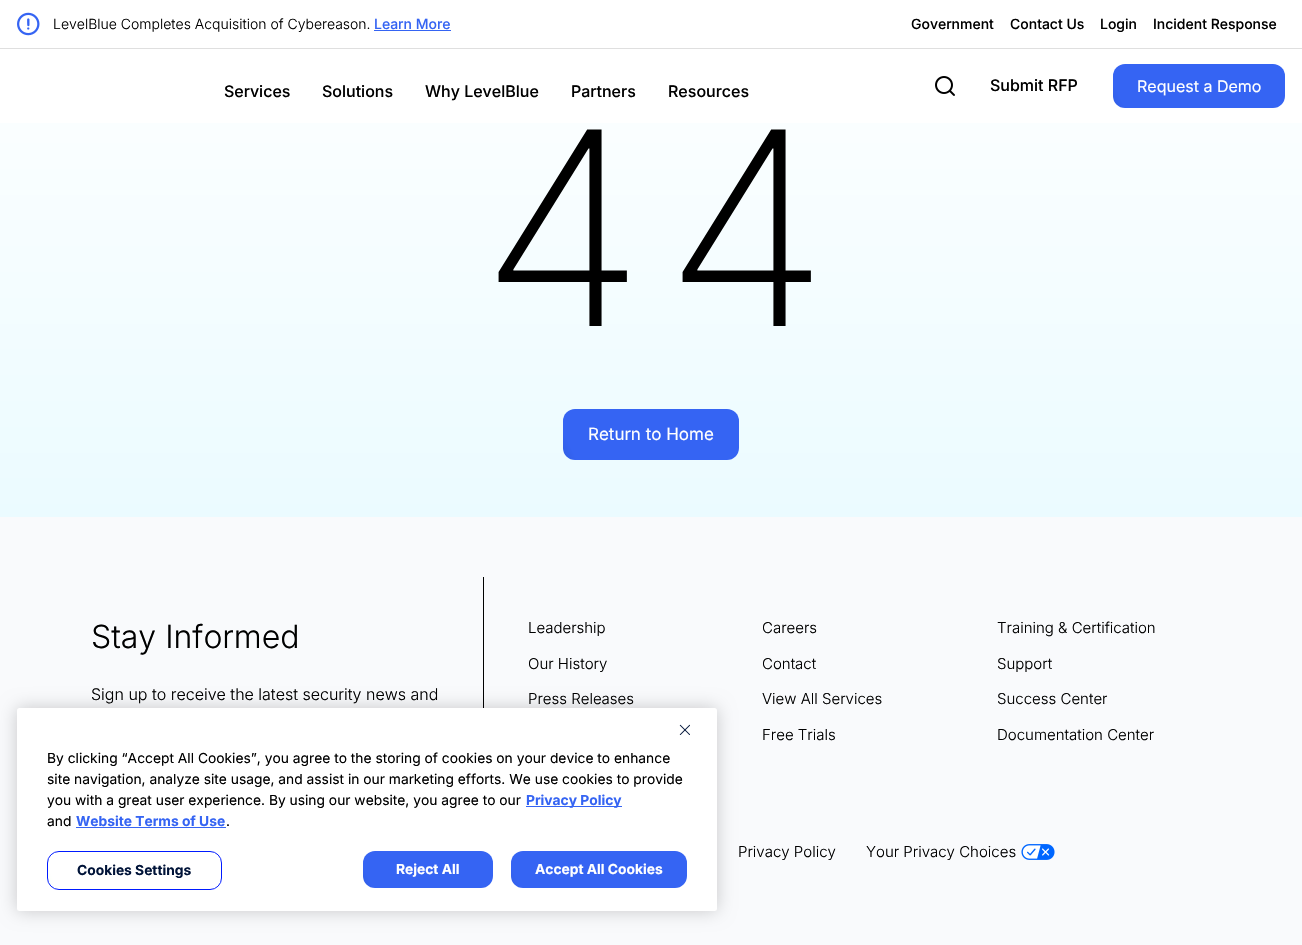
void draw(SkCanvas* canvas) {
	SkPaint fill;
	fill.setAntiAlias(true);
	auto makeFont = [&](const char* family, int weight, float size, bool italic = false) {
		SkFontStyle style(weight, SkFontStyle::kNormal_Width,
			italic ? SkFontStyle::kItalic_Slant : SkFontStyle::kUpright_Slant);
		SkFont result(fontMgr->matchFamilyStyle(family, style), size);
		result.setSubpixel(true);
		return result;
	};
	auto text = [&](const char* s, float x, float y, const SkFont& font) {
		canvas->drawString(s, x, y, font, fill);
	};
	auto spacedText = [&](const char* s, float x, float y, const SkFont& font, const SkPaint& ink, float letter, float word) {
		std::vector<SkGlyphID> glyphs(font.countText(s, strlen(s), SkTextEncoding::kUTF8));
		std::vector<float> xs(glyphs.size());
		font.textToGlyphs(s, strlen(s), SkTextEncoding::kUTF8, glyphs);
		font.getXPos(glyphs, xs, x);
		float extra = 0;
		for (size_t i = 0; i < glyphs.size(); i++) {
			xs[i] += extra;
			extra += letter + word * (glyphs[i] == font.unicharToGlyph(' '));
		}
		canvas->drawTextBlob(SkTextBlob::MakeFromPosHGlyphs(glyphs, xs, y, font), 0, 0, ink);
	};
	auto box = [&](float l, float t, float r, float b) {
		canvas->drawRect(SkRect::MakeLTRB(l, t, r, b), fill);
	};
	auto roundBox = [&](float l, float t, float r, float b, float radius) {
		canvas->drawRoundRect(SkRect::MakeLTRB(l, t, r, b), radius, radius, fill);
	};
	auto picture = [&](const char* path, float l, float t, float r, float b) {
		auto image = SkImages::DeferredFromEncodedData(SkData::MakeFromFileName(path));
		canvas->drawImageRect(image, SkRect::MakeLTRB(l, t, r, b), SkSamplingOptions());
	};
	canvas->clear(0xFFFFFFFF);
	fill.setColor(0xFFDFDFDF);
	box(0, 48, 1302, 49);
	picture("image0.png", 17, 12, 40, 36);
	fill.setColor(0xFF3564F3);
	box(374, 30, 451, 31);
	picture("image1.png", 935, 76, 955, 96);
	{
		const SkColor colors[] = {0xFF001338, 0xFF001338, 0xFF3564F3, 0xFF3564F3};
		const float stops[] = {0, 0.25f, 0.6f, 1};
		const SkPoint ends[] = {{885, 172}, {1255, -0.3f}};
		fill.setShader(SkGradientShader::MakeLinear(ends, colors, stops, 4, SkTileMode::kClamp));
		fill.setAlpha(255);
	}
	roundBox(1113, 64, 1285, 108, 12);
	{
		const SkColor colors[] = {0xFFFFFFFF, 0xFFEBFBFF};
		const float stops[] = {0, 1};
		const SkPoint ends[] = {{651, 1}, {651, 517}};
		fill.setShader(SkGradientShader::MakeLinear(ends, colors, stops, 2, SkTileMode::kClamp));
		fill.setAlpha(255);
	}
	box(0, 123, 1302, 517);
	{
		const SkColor colors[] = {0xFF001338, 0xFF001338, 0xFF3564F3, 0xFF3564F3};
		const float stops[] = {0, 0.25f, 0.6f, 1};
		const SkPoint ends[] = {{329, 523}, {709, 346}};
		fill.setShader(SkGradientShader::MakeLinear(ends, colors, stops, 4, SkTileMode::kClamp));
		fill.setAlpha(255);
	}
	roundBox(563, 409, 739, 460, 12);
	fill.setShader(nullptr);
	fill.setColor(0xFFF9FAFC);
	box(0, 517, 1302, 945);
	fill.setColor(0xFF000000);
	box(483, 577, 484, 708);
	picture("image2.png", 1021, 844, 1055, 860);
	fill.setColor(0x33000000);
	fill.setMaskFilter(SkMaskFilter::MakeBlur(kNormal_SkBlurStyle, 9));
	canvas->drawRoundRect(SkRect::MakeLTRB(17, 708, 717, 911), 2.5f, 2.5f, fill);
	fill.setMaskFilter(nullptr);
	fill.setColor(0xFFFFFFFF);
	roundBox(17, 708, 717, 911, 2.5f);
	picture("image3.png", 679, 724, 690, 735);
	fill.setColor(0xFF3564F3);
	box(526, 806, 622, 807);
	box(76, 827, 226, 828);
	canvas->save();
	canvas->clipPath(SkPathBuilder().moveTo(59, 851).lineTo(210, 851).cubicTo(216.5f, 851, 222, 856.5f, 222, 863).lineTo(222, 878).cubicTo(222, 884.5f, 216.5f, 890, 210, 890).lineTo(59, 890).cubicTo(52.5f, 890, 47, 884.5f, 47, 878).lineTo(47, 863).cubicTo(47, 856.5f, 52.5f, 851, 59, 851).close().detach(), true);
	{
		const SkColor colors[] = {0xFF9CEF69, 0xFF9CEF69, 0xFFFFFFFF, 0xFFFFFFFF};
		const float stops[] = {0, 0.25f, 0.6f, 1};
		const SkPoint ends[] = {{-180, 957}, {189, 784}};
		fill.setShader(SkGradientShader::MakeLinear(ends, colors, stops, 4, SkTileMode::kClamp));
		fill.setAlpha(255);
	}
	box(47, 852, 221, 889);
	canvas->restore();
	fill.setStyle(SkPaint::kStroke_Style);
	fill.setStrokeWidth(1);
	fill.setShader(nullptr);
	fill.setColor(0xFF001AFF);
	canvas->drawRoundRect(SkRect::MakeLTRB(47.5f, 851.5f, 221.5f, 889.5f), 11.5f, 11.5f, fill);
	fill.setStyle(SkPaint::kFill_Style);
	{
		const SkColor colors[] = {0xFF001338, 0xFF001338, 0xFF3564F3, 0xFF3564F3};
		const float stops[] = {0, 0.25f, 0.6f, 1};
		const SkPoint ends[] = {{190, 935}, {471, 804}};
		fill.setShader(SkGradientShader::MakeLinear(ends, colors, stops, 4, SkTileMode::kClamp));
		fill.setAlpha(255);
	}
	roundBox(363, 851, 493, 888, 12);
	{
		const SkColor colors[] = {0xFF001338, 0xFF001338, 0xFF3564F3, 0xFF3564F3};
		const float stops[] = {0, 0.25f, 0.6f, 1};
		const SkPoint ends[] = {{279, 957}, {655, 782}};
		fill.setShader(SkGradientShader::MakeLinear(ends, colors, stops, 4, SkTileMode::kClamp));
		fill.setAlpha(255);
	}
	roundBox(511, 851, 687, 888, 12);
	auto font1 = makeFont("Inter", 300, 14);
	fill.setShader(nullptr);
	fill.setColor(0xFF000000);
	text("LevelBlue Completes Acquisition of Cybereason.", 53, 29, font1);
	auto font2 = makeFont("Inter", 500, 14);
	fill.setColor(0xFF3564F3);
	text("Learn More", 374, 29, font2);
	fill.setColor(0xFF000000);
	text("Government", 911, 29, font2);
	text("Contact Us", 1010, 29, font2);
	text("Login", 1100, 29, font2);
	text("Incident Response", 1153, 29, font2);
	auto font3 = makeFont("Inter", 500, 16);
	text("Services", 224, 97, font3);
	text("Solutions", 322, 97, font3);
	text("Why LevelBlue", 425, 97, font3);
	text("Partners", 571, 97, font3);
	text("Resources", 668, 97, font3);
	text("Submit RFP", 990, 91, font3);
	auto font4 = makeFont("Inter", 400, 16);
	fill.setColor(0xFFFFFFFF);
	text("Request a Demo", 1137, 92, font4);
	auto font5 = makeFont("Inter", 200, 270);
	fill.setColor(0xFF000000);
	spacedText("4", 480, 326, font5, fill, -7, 0);
	spacedText("4", 664, 326, font5, fill, -7, 0);
	auto font6 = makeFont("Inter", 400, 17);
	fill.setColor(0xFFFFFFFF);
	text("Return to Home", 588, 440, font6);
	auto font7 = makeFont("Inter", 300, 32);
	fill.setColor(0xFF000000);
	text("Stay Informed", 91, 648, font7);
	auto font8 = makeFont("Inter", 300, 16);
	text("Sign up to receive the latest security news and", 91, 700, font8);
	auto font9 = makeFont("Inter", 300, 15);
	text("Leadership", 528, 633, font9);
	text("Our History", 528, 669, font9);
	text("Press Releases", 528, 704, font9);
	text("Careers", 762, 633, font9);
	text("Contact", 762, 669, font9);
	text("View All Services", 762, 704, font9);
	text("Free Trials", 762, 740, font9);
	text("Training & Certification", 997, 633, font9);
	text("Support", 997, 669, font9);
	text("Success Center", 997, 704, font9);
	text("Documentation Center", 997, 740, font9);
	text("Privacy Policy", 738, 857, font9);
	text("Your Privacy Choices", 866, 857, font9);
	auto font10 = makeFont("Inter", 400, 13.8f);
	text("By clicking “Accept All Cookies”, you agree to the storing of cookies on your device to enhance", 47, 763, font10);
	text("site navigation, analyze site usage, and assist in our marketing efforts. We use cookies to provide", 47, 784, font10);
	text("you with a great user experience. By using our website, you agree to our", 47, 805, font10);
	auto font11 = makeFont("Inter", 700, 13.8f);
	fill.setColor(0xFF3564F3);
	text("Privacy Policy", 526, 805, font11);
	fill.setColor(0xFF000000);
	text("and", 47, 826, font10);
	fill.setColor(0xFF3564F3);
	text("Website Terms of Use", 76, 826, font11);
	fill.setColor(0xFF000000);
	text(".", 226, 826, font10);
	fill.setColor(0xFF001338);
	text("Cookies Settings", 77, 875, font11);
	fill.setColor(0xFFFFFFFF);
	text("Reject All", 396, 874, font11);
	text("Accept All Cookies", 535, 874, font11);
}
